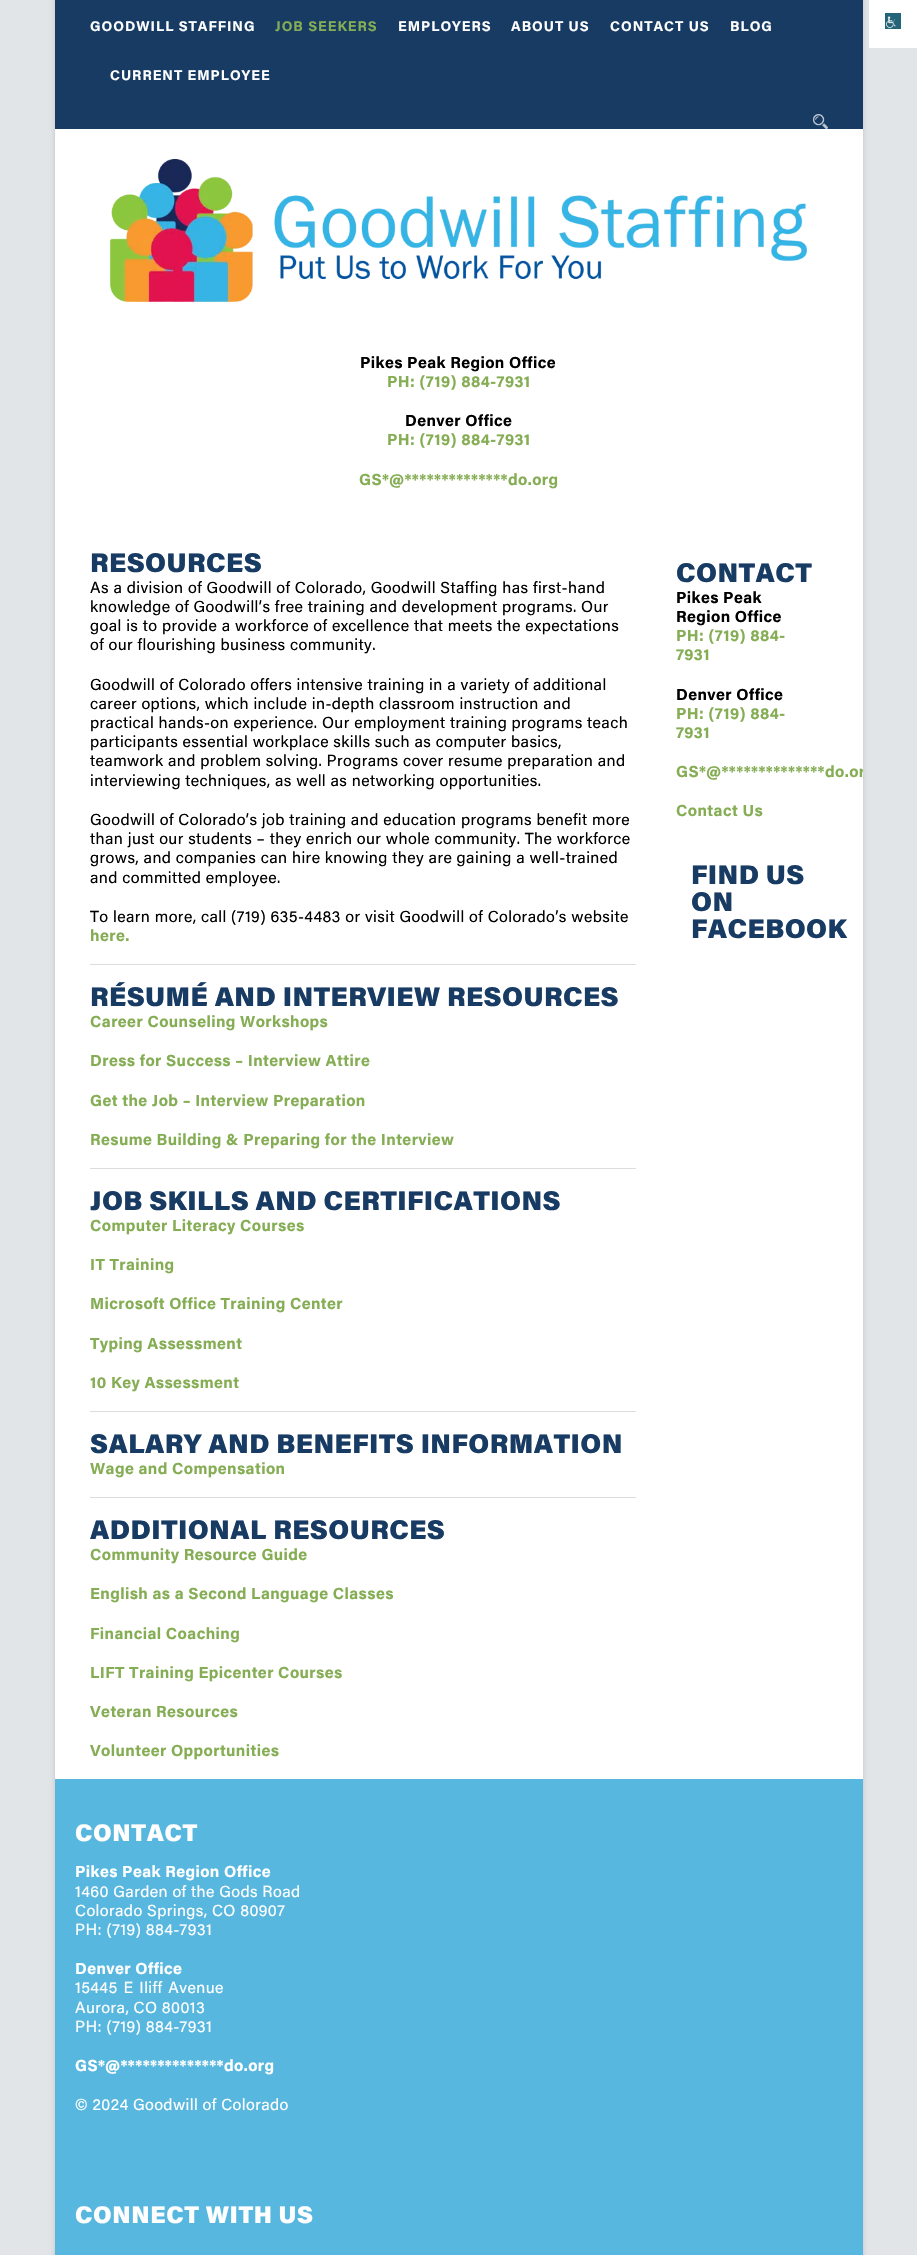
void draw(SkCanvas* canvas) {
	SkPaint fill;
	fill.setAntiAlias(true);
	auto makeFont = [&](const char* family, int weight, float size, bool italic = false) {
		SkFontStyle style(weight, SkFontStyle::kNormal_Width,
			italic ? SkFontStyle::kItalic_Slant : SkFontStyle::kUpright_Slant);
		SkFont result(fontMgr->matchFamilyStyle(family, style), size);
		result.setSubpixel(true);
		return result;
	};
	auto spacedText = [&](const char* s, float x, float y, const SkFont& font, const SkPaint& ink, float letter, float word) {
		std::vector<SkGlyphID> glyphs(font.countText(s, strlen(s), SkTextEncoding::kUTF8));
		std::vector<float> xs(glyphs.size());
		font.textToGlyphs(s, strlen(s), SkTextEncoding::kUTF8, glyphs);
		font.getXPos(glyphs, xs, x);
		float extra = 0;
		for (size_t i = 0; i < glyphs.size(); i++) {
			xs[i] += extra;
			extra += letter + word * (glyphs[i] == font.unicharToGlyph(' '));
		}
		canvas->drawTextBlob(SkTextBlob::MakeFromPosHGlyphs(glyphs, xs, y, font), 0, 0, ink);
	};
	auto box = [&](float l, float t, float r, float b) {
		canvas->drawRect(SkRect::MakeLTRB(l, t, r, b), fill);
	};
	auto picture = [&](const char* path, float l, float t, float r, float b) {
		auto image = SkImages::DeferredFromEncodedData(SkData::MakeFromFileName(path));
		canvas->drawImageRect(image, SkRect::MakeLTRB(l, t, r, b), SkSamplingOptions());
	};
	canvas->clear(0xFFE2E5E8);
	fill.setColor(0x26000000);
	fill.setMaskFilter(SkMaskFilter::MakeBlur(kNormal_SkBlurStyle, 2.5f));
	canvas->drawRect(SkRect::MakeLTRB(55, -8, 863, 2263), fill);
	fill.setMaskFilter(nullptr);
	fill.setColor(0xFFFFFFFF);
	box(55, 129, 863, 1779);
	fill.setColor(0xFF183B64);
	box(55, 0, 863, 129);
	picture("image0.png", 813, 114, 828, 129);
	picture("image1.png", 110, 159, 807, 302);
	fill.setColor(0xFFDDDDDD);
	box(90, 964, 636, 965);
	box(90, 1168, 636, 1169);
	box(90, 1411, 636, 1412);
	box(90, 1497, 636, 1498);
	fill.setColor(0xFF57B7DF);
	box(55, 1779, 863, 2255);
	fill.setColor(0xFFFFFFFF);
	box(869, 0, 917, 48);
	picture("image2.png", 885, 13, 901, 29);
	auto font1 = makeFont("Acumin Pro", 700, 14);
	spacedText("GOODWILL STAFFING", 90, 31, font1, fill, 1, 0);
	fill.setColor(0xFF85AD54);
	spacedText("JOB SEEKERS", 275, 31, font1, fill, 1, 0);
	fill.setColor(0xFFFFFFFF);
	spacedText("EMPLOYERS", 398, 31, font1, fill, 1, 0);
	spacedText("ABOUT US", 511, 31, font1, fill, 1, 0);
	spacedText("CONTACT US", 610, 31, font1, fill, 1, 0);
	spacedText("BLOG", 730, 31, font1, fill, 1, 0);
	spacedText("CURRENT EMPLOYEE", 110, 80, font1, fill, 1, 0);
	auto font2 = makeFont("Acumin Pro", 700, 16);
	fill.setColor(0xFF000000);
	spacedText("Pikes Peak Region Office", 360, 368, font2, fill, 0.4f, 0);
	fill.setColor(0xFF85AD54);
	spacedText("PH: (719) 884-7931", 387, 387, font2, fill, 0.4f, 0);
	fill.setColor(0xFF000000);
	spacedText("Denver Office", 405, 426, font2, fill, 0.4f, 0);
	fill.setColor(0xFF85AD54);
	spacedText("PH: (719) 884-7931", 387, 445, font2, fill, 0.4f, 0);
	spacedText("GS*", 359, 485, font2, fill, 0.4f, 0);
	spacedText("@**************", 389, 485, font2, fill, 0.4f, 0);
	spacedText("do.org", 508, 485, font2, fill, 0.4f, 0);
	auto font3 = makeFont("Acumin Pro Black", 900, 27);
	fill.setColor(0xFF183B64);
	spacedText("RESOURCES", 90, 572, font3, fill, 0.4f, 0);
	auto font4 = makeFont("Acumin Pro", 400, 16);
	fill.setColor(0xFF000000);
	spacedText("As a division of Goodwill of Colorado, Goodwill Staffing has first-hand", 90, 593, font4, fill, 0.4f, 0);
	spacedText("knowledge of Goodwill’s free training and development programs. Our", 90, 612, font4, fill, 0.4f, 0);
	spacedText("goal is to provide a workforce of excellence that meets the expectations", 90, 631, font4, fill, 0.4f, 0);
	spacedText("of our flourishing business community.", 90, 650, font4, fill, 0.4f, 0);
	spacedText("Goodwill of Colorado offers intensive training in a variety of additional", 90, 690, font4, fill, 0.4f, 0);
	spacedText("career options, which include in-depth classroom instruction and", 90, 709, font4, fill, 0.4f, 0);
	spacedText("practical hands-on experience. Our employment training programs teach", 90, 728, font4, fill, 0.4f, 0);
	spacedText("participants essential workplace skills such as computer basics,", 90, 747, font4, fill, 0.4f, 0);
	spacedText("teamwork and problem solving. Programs cover resume preparation and", 90, 766, font4, fill, 0.4f, 0);
	spacedText("interviewing techniques, as well as networking opportunities.", 90, 786, font4, fill, 0.4f, 0);
	spacedText("Goodwill of Colorado’s job training and education programs benefit more", 90, 825, font4, fill, 0.4f, 0);
	spacedText("than just our students – they enrich our whole community. The workforce", 90, 844, font4, fill, 0.4f, 0);
	spacedText("grows, and companies can hire knowing they are gaining a well-trained", 90, 863, font4, fill, 0.4f, 0);
	spacedText("and committed employee.", 90, 883, font4, fill, 0.4f, 0);
	spacedText("To learn more, call (719) 635-4483 or visit Goodwill of Colorado’s website", 90, 922, font4, fill, 0.4f, 0);
	fill.setColor(0xFF85AD54);
	spacedText("here.", 90, 941, font2, fill, 0.4f, 0);
	fill.setColor(0xFF183B64);
	spacedText("RÉSUMÉ AND INTERVIEW RESOURCES", 90, 1006, font3, fill, 0.4f, 0);
	fill.setColor(0xFF85AD54);
	spacedText("Career Counseling Workshops", 90, 1027, font2, fill, 0.4f, 0);
	spacedText("Dress for Success – Interview Attire", 90, 1066, font2, fill, 0.4f, 0);
	spacedText("Get the Job – Interview Preparation", 90, 1106, font2, fill, 0.4f, 0);
	spacedText("Resume Building & Preparing for the Interview", 90, 1145, font2, fill, 0.4f, 0);
	fill.setColor(0xFF183B64);
	spacedText("JOB SKILLS AND CERTIFICATIONS", 90, 1210, font3, fill, 0.4f, 0);
	fill.setColor(0xFF85AD54);
	spacedText("Computer Literacy Courses", 90, 1231, font2, fill, 0.4f, 0);
	spacedText("IT Training", 90, 1270, font2, fill, 0.4f, 0);
	spacedText("Microsoft Office Training Center", 90, 1309, font2, fill, 0.4f, 0);
	spacedText("Typing Assessment", 90, 1349, font2, fill, 0.4f, 0);
	spacedText("10 Key Assessment", 90, 1388, font2, fill, 0.4f, 0);
	fill.setColor(0xFF183B64);
	spacedText("SALARY AND BENEFITS INFORMATION", 90, 1453, font3, fill, 0.4f, 0);
	fill.setColor(0xFF85AD54);
	spacedText("Wage and Compensation", 90, 1474, font2, fill, 0.4f, 0);
	fill.setColor(0xFF183B64);
	spacedText("ADDITIONAL RESOURCES", 90, 1539, font3, fill, 0.4f, 0);
	fill.setColor(0xFF85AD54);
	spacedText("Community Resource Guide", 90, 1560, font2, fill, 0.4f, 0);
	spacedText("English as a Second Language Classes", 90, 1599, font2, fill, 0.4f, 0);
	spacedText("Financial Coaching", 90, 1639, font2, fill, 0.4f, 0);
	spacedText("LIFT Training Epicenter Courses", 90, 1678, font2, fill, 0.4f, 0);
	spacedText("Veteran Resources", 90, 1717, font2, fill, 0.4f, 0);
	spacedText("Volunteer Opportunities", 90, 1756, font2, fill, 0.4f, 0);
	fill.setColor(0xFF183B64);
	spacedText("CONTACT", 676, 582, font3, fill, 0.4f, 0);
	fill.setColor(0xFF000000);
	spacedText("Pikes Peak", 676, 603, font2, fill, 0.4f, 0);
	spacedText("Region Office", 676, 622, font2, fill, 0.4f, 0);
	fill.setColor(0xFF85AD54);
	spacedText("PH: (719) 884-", 676, 641, font2, fill, 0.4f, 0);
	spacedText("7931", 676, 660, font2, fill, 0.4f, 0);
	fill.setColor(0xFF000000);
	spacedText("Denver Office", 676, 700, font2, fill, 0.4f, 0);
	fill.setColor(0xFF85AD54);
	spacedText("PH: (719) 884-", 676, 719, font2, fill, 0.4f, 0);
	spacedText("7931", 676, 738, font2, fill, 0.4f, 0);
	spacedText("GS*", 676, 777, font2, fill, 0.4f, 0);
	spacedText("@**************", 706, 777, font2, fill, 0.4f, 0);
	canvas->save();
	canvas->clipRect(SkRect::MakeLTRB(55, 0, 863, 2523));
	spacedText("do.or", 825, 777, font2, fill, 0.4f, 0);
	canvas->restore();
	spacedText("Contact Us", 676, 816, font2, fill, 0.4f, 0);
	fill.setColor(0xFF183B64);
	spacedText("FIND US", 691, 884, font3, fill, 0.4f, 0);
	spacedText("ON", 691, 911, font3, fill, 0.4f, 0);
	spacedText("FACEBOOK", 691, 938, font3, fill, 0.4f, 0);
	auto font5 = makeFont("Acumin Pro Black", 900, 24);
	fill.setColor(0xFFFFFFFF);
	spacedText("CONTACT", 75, 1841, font5, fill, 0.6f, 0);
	spacedText("Pikes Peak Region Office", 75, 1877, font2, fill, 0.4f, 0);
	spacedText("1460 Garden of the Gods Road", 75, 1897, font4, fill, 0.4f, 0);
	spacedText("Colorado Springs, CO 80907", 75, 1916, font4, fill, 0.4f, 0);
	spacedText("PH: (719) 884-7931", 75, 1935, font4, fill, 0.4f, 0);
	spacedText("Denver Office", 75, 1974, font2, fill, 0.4f, 0);
	spacedText("15445 E Iliff Avenue", 75, 1993, font4, fill, 0.4f, 1.5f);
	spacedText("Aurora, CO 80013", 75, 2013, font4, fill, 0.4f, 0);
	spacedText("PH: (719) 884-7931", 75, 2032, font4, fill, 0.4f, 0);
	spacedText("GS*", 75, 2071, font2, fill, 0.4f, 0);
	spacedText("@**************", 105, 2071, font2, fill, 0.4f, 0);
	spacedText("do.org", 224, 2071, font2, fill, 0.4f, 0);
	spacedText("© 2024 Goodwill of Colorado", 75, 2110, font4, fill, 0.4f, 0);
	spacedText("CONNECT WITH US", 75, 2223, font5, fill, 0.6f, 0);
}
